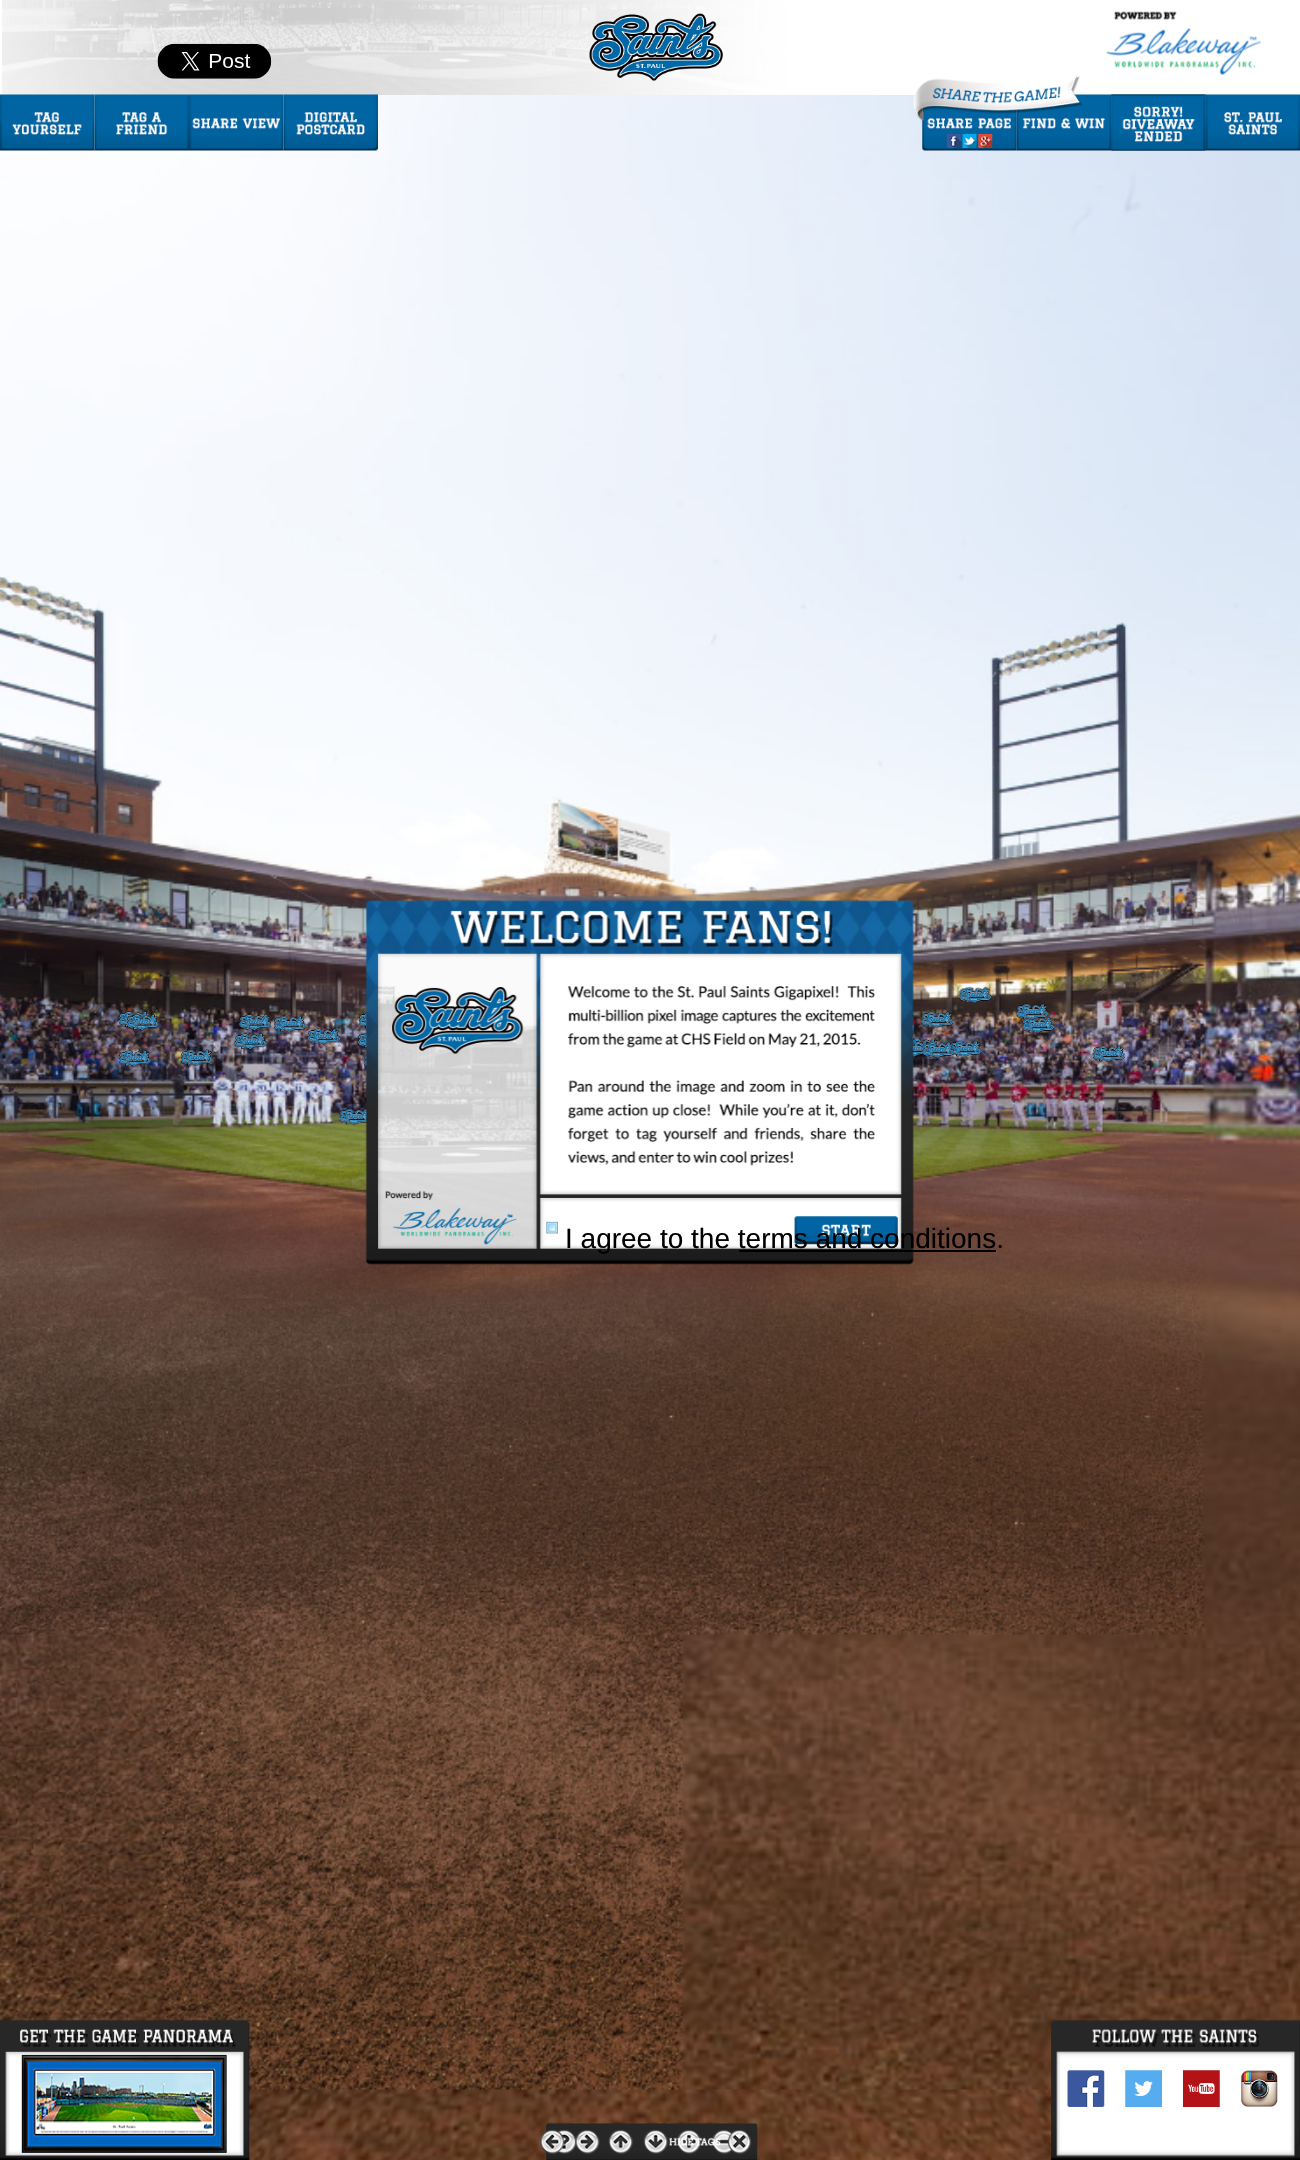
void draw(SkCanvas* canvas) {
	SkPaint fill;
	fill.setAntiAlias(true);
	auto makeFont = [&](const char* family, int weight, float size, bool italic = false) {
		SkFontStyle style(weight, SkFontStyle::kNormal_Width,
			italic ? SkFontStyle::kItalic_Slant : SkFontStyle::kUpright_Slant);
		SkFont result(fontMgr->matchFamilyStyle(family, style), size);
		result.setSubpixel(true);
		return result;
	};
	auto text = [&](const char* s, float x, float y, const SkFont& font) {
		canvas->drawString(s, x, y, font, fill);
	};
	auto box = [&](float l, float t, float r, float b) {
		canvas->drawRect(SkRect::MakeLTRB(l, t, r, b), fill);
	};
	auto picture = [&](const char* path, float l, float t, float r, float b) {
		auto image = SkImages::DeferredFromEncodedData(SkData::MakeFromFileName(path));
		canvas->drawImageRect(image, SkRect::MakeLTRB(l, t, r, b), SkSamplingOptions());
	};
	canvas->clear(0xFFFFFFFF);
	picture("image1.png", 0, 0, 1300, 2160);
	picture("image2.png", 2, 0, 1300, 95);
	picture("image0.png", 157, 43, 272, 79);
	picture("image3.png", 589, 13, 723, 81);
	picture("image4.png", 1106, 11, 1261, 75);
	picture("image5.png", 0, 94, 95, 151);
	picture("image6.png", 94, 94, 189, 151);
	picture("image7.png", 189, 94, 284, 151);
	picture("image8.png", 283, 94, 378, 151);
	picture("image12.png", 922, 105, 1017, 151);
	picture("image10.png", 1016, 94, 1112, 151);
	picture("image9.png", 913, 74, 1082, 122);
	picture("image11.png", 1111, 94, 1206, 151);
	picture("image13.png", 1111, 94, 1206, 151);
	picture("image14.png", 1205, 94, 1300, 151);
	picture("image15.png", 959, 986, 991, 1004);
	picture("image16.png", 119, 1011, 150, 1028);
	picture("image17.png", 359, 1012, 368, 1028);
	picture("image18.png", 921, 1011, 954, 1029);
	picture("image23.png", 1022, 1016, 1054, 1034);
	picture("image19.png", 1016, 1003, 1049, 1021);
	picture("image20.png", 127, 1014, 159, 1031);
	picture("image21.png", 239, 1014, 271, 1031);
	picture("image22.png", 274, 1015, 306, 1033);
	picture("image24.png", 235, 1033, 267, 1050);
	picture("image25.png", 308, 1028, 340, 1045);
	picture("image26.png", 358, 1032, 368, 1048);
	picture("image27.png", 911, 1038, 939, 1055);
	picture("image28.png", 119, 1050, 151, 1067);
	picture("image29.png", 181, 1049, 213, 1067);
	picture("image30.png", 364, 1054, 368, 1067);
	picture("image31.png", 911, 1040, 930, 1057);
	picture("image33.png", 949, 1040, 982, 1058);
	picture("image32.png", 922, 1041, 954, 1059);
	picture("image34.png", 1093, 1045, 1125, 1063);
	picture("image35.png", 339, 1108, 368, 1126);
	picture("image36.png", 365, 900, 914, 1265);
	picture("image37.png", 546, 1221, 558, 1234);
	picture("image38.png", 794, 1216, 898, 1245);
	fill.setColor(0xFF000000);
	box(739, 1250, 996, 1252);
	picture("image39.png", 0, 2020, 250, 2160);
	picture("image40.png", 546, 2123, 758, 2160);
	picture("image41.png", 1051, 2019, 1300, 2160);
	picture("image42.png", 1067, 2070, 1105, 2107);
	picture("image43.png", 1125, 2070, 1162, 2107);
	picture("image44.png", 1183, 2070, 1220, 2107);
	picture("image45.png", 1241, 2070, 1278, 2107);
	picture("image47.png", 556, 2130, 577, 2154);
	picture("image46.png", 540, 2130, 565, 2154);
	picture("image48.png", 574, 2130, 600, 2154);
	picture("image49.png", 608, 2130, 633, 2154);
	picture("image50.png", 643, 2130, 668, 2154);
	picture("image51.png", 676, 2130, 701, 2154);
	picture("image52.png", 712, 2130, 733, 2154);
	picture("image53.png", 727, 2130, 752, 2154);
	picture("image54.png", 669, 2137, 721, 2146);
	auto font1 = makeFont("Liberation Sans", 400, 28);
	text("I agree to the terms and conditions.", 565, 1248, font1);
}
